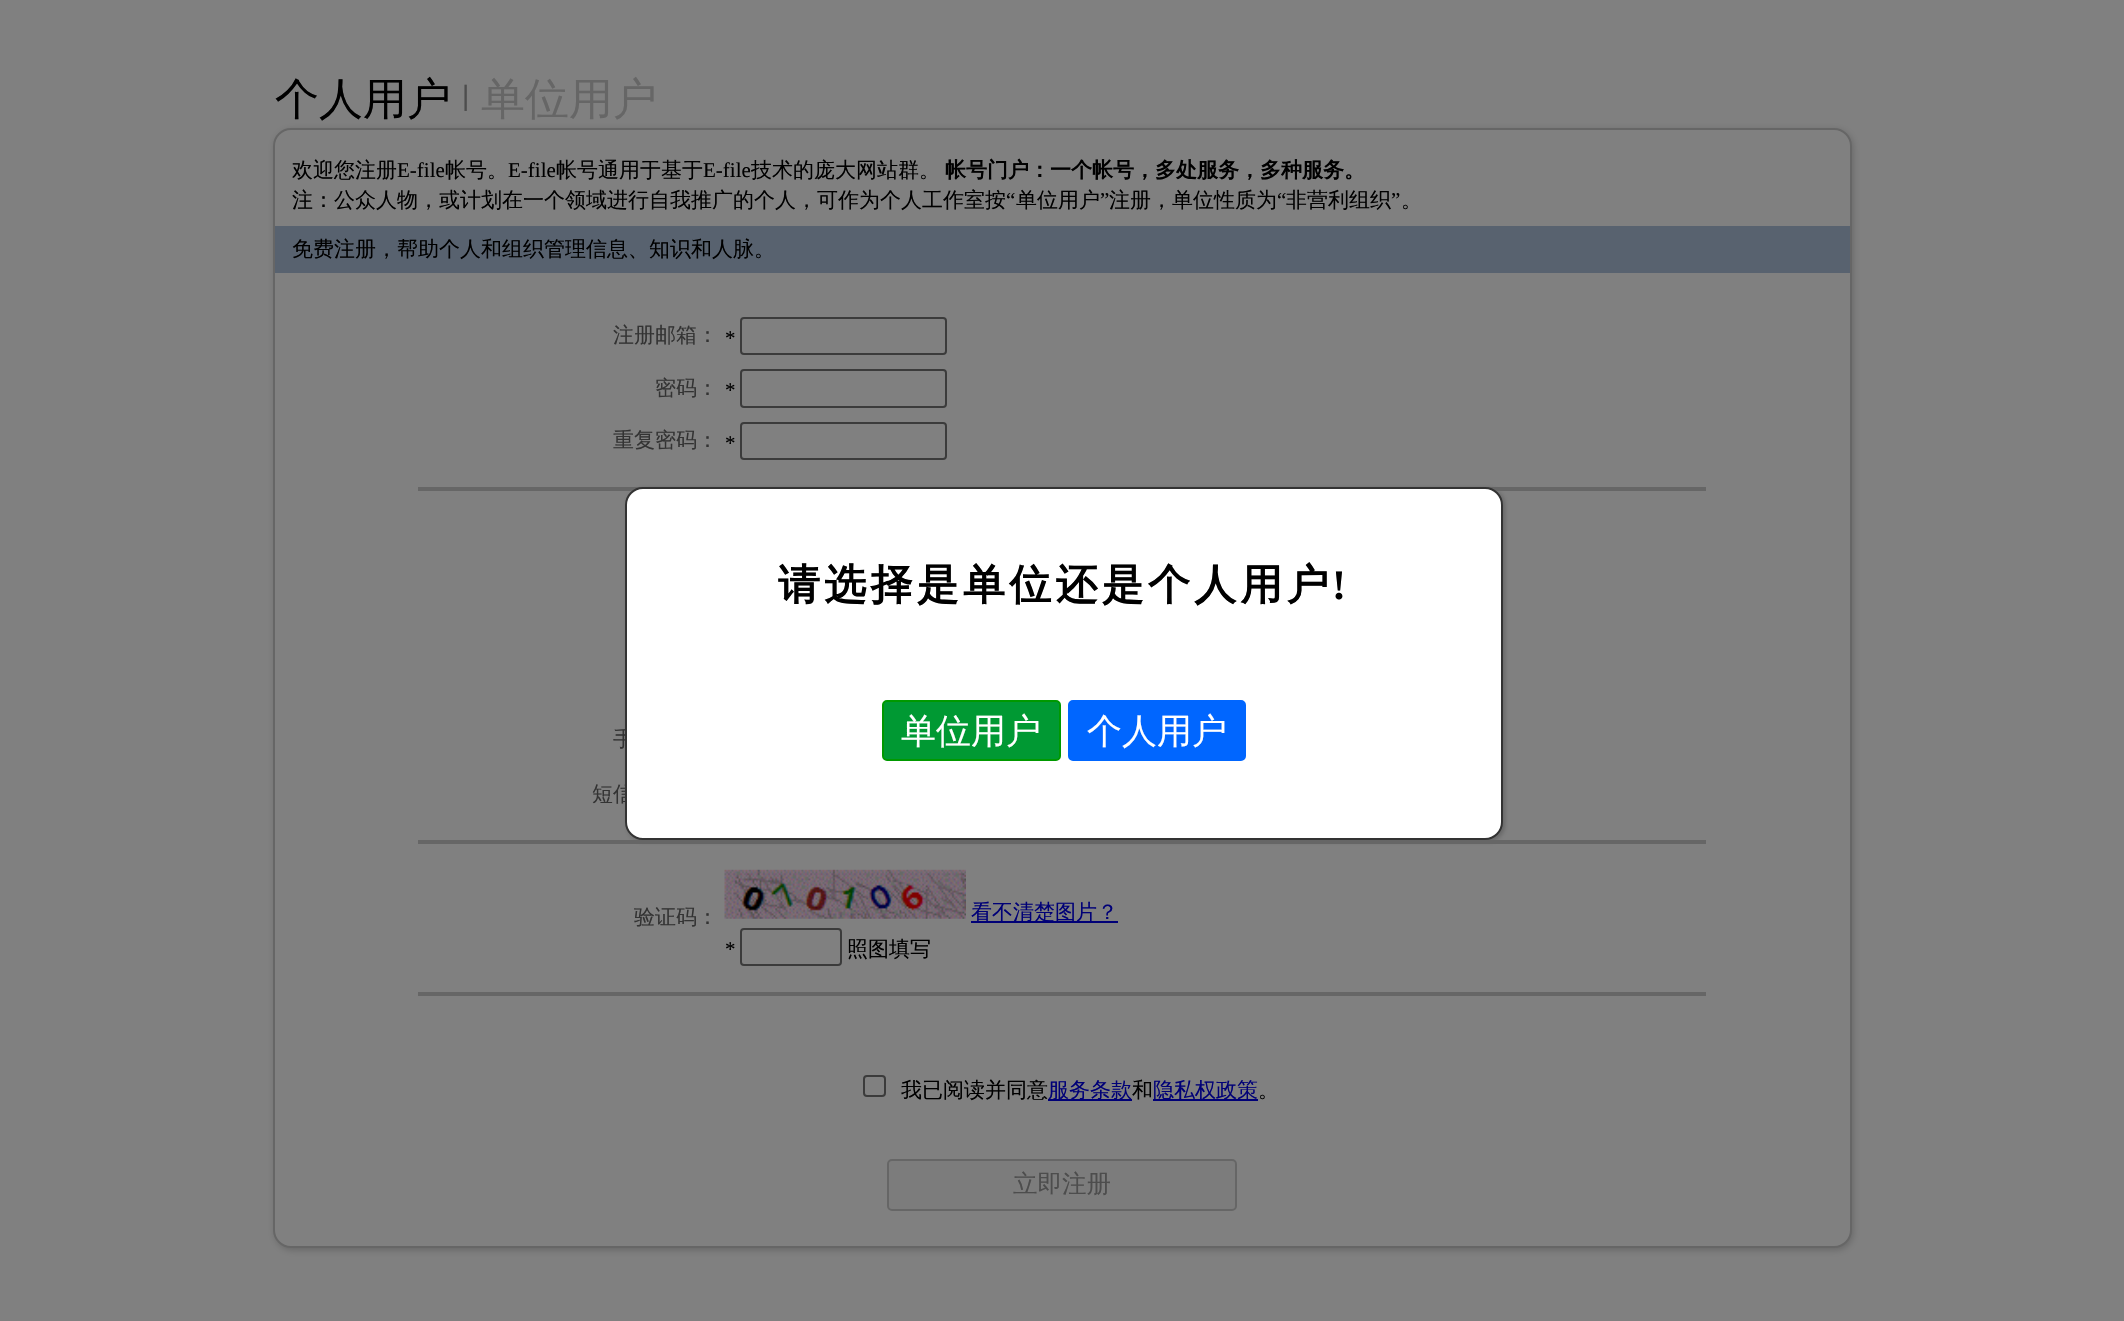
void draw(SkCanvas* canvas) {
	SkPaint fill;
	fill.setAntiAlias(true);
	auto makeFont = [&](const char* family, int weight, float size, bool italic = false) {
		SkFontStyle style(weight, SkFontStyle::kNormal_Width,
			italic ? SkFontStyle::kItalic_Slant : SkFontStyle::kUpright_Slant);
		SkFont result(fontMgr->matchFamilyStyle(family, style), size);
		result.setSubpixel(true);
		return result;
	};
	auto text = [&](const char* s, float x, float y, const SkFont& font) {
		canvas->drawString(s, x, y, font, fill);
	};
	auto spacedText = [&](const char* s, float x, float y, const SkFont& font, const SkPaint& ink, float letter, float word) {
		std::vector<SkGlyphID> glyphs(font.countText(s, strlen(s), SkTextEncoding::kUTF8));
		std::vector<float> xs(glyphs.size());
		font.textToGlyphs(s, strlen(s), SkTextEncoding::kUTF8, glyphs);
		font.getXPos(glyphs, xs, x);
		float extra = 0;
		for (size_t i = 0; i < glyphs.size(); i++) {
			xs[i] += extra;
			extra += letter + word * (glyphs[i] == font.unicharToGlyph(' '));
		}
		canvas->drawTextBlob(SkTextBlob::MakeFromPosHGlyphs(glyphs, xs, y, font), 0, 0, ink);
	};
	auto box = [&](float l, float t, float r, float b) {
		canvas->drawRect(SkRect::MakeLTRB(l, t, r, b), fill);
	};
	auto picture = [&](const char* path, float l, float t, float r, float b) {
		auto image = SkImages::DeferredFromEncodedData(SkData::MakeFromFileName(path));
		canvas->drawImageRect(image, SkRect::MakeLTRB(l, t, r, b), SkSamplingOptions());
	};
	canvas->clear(0xFF808080);
	fill.setColor(0xFF666666);
	fill.setMaskFilter(SkMaskFilter::MakeBlur(kNormal_SkBlurStyle, 3.5f));
	canvas->drawRoundRect(SkRect::MakeLTRB(275, 130, 1853, 1250), 18, 18, fill);
	fill.setMaskFilter(nullptr);
	fill.setColor(0xFF808080);
	canvas->drawRoundRect(SkRect::MakeLTRB(274, 129, 1851, 1247), 17, 17, fill);
	fill.setStyle(SkPaint::kStroke_Style);
	fill.setStrokeWidth(2);
	fill.setColor(0xFF666666);
	canvas->drawRoundRect(SkRect::MakeLTRB(274, 129, 1851, 1247), 17, 17, fill);
	fill.setStyle(SkPaint::kFill_Style);
	fill.setColor(0xFF58626F);
	box(275, 226, 1850, 273);
	fill.setStyle(SkPaint::kStroke_Style);
	fill.setColor(0xFF3B3B3B);
	canvas->drawRoundRect(SkRect::MakeLTRB(741, 318, 946, 354), 3, 3, fill);
	canvas->drawRoundRect(SkRect::MakeLTRB(741, 370, 946, 407), 3, 3, fill);
	canvas->drawRoundRect(SkRect::MakeLTRB(741, 423, 946, 459), 3, 3, fill);
	fill.setStyle(SkPaint::kFill_Style);
	fill.setColor(0xFF666666);
	box(418, 487, 1706, 491);
	box(418, 840, 1706, 844);
	picture("image0.png", 724, 869, 966, 919);
	fill.setColor(0xFF000077);
	box(971, 921, 1118, 923);
	fill.setStyle(SkPaint::kStroke_Style);
	fill.setColor(0xFF3B3B3B);
	canvas->drawRoundRect(SkRect::MakeLTRB(741, 929, 841, 965), 3, 3, fill);
	fill.setStyle(SkPaint::kFill_Style);
	fill.setColor(0xFF666666);
	box(418, 992, 1706, 996);
	fill.setStyle(SkPaint::kStroke_Style);
	fill.setColor(0xFF3B3B3B);
	canvas->drawRoundRect(SkRect::MakeLTRB(864, 1076, 885, 1096), 3, 3, fill);
	fill.setStyle(SkPaint::kFill_Style);
	fill.setColor(0xFF000077);
	box(1048, 1099, 1132, 1101);
	box(1153, 1099, 1258, 1101);
	fill.setColor(0xFF7C7C7C);
	canvas->drawRoundRect(SkRect::MakeLTRB(888, 1160, 1236, 1210), 4, 4, fill);
	fill.setStyle(SkPaint::kStroke_Style);
	fill.setColor(0xFF666666);
	canvas->drawRoundRect(SkRect::MakeLTRB(888, 1160, 1236, 1210), 4, 4, fill);
	fill.setStyle(SkPaint::kFill_Style);
	fill.setMaskFilter(SkMaskFilter::MakeBlur(kNormal_SkBlurStyle, 2));
	canvas->drawRoundRect(SkRect::MakeLTRB(627, 488, 1505, 842), 18, 18, fill);
	fill.setMaskFilter(nullptr);
	auto font1 = makeFont("WenQuanYi Zen Hei", 500, 44);
	fill.setColor(0xFF000000);
	text("个人用户", 275, 114, font1);
	auto font2 = makeFont("Liberation Sans", 400, 28);
	fill.setColor(0xFF4D4D4D);
	text("|", 462, 105, font2);
	fill.setColor(0xFF666666);
	text("单位用户", 481, 114, font1);
	auto font3 = makeFont("WenQuanYi Zen Hei", 500, 21);
	fill.setColor(0xFF000000);
	text("欢迎您注册", 292, 177, font3);
	auto font4 = makeFont("Liberation Serif", 400, 21);
	text("E-file", 397, 177, font4);
	text("帐号。", 445, 177, font3);
	text("E-file", 508, 177, font4);
	text("帐号通用于基于", 556, 177, font3);
	text("E-file", 703, 177, font4);
	text("技术的庞大网站群。", 751, 177, font3);
	auto font5 = makeFont("WenQuanYi Zen Hei", 700, 21);
	text("帐号门户：一个帐号，多处服务，多种服务。", 945, 177, font5);
	text("注：公众人物，或计划在一个领域进行自我推广的个人，可作为个人工作室按", 292, 207, font3);
	text("“", 1006, 207, font4);
	text("单位用户", 1016, 207, font3);
	text("”", 1100, 207, font4);
	text("注册，单位性质为", 1109, 207, font3);
	text("“", 1277, 207, font4);
	text("非营利组织", 1286, 207, font3);
	text("”", 1391, 207, font4);
	text("。", 1401, 207, font3);
	text("免费注册，帮助个人和组织管理信息、知识和人脉。", 292, 256, font3);
	fill.setColor(0xFF333333);
	text("注册邮箱：", 613, 342, font3);
	fill.setColor(0xFF000000);
	text("*", 725, 345, font4);
	fill.setColor(0xFF333333);
	text("密码：", 655, 395, font3);
	fill.setColor(0xFF000000);
	text("*", 725, 397, font4);
	fill.setColor(0xFF333333);
	text("重复密码：", 613, 447, font3);
	fill.setColor(0xFF000000);
	text("*", 725, 450, font4);
	fill.setColor(0xFF333333);
	text("手", 613, 746, font3);
	text("短信", 592, 801, font3);
	text("验证码：", 634, 924, font3);
	fill.setColor(0xFF000077);
	text("看不清楚图片？", 971, 919, font3);
	fill.setColor(0xFF000000);
	text("*", 725, 956, font4);
	text("照图填写", 847, 956, font3);
	text("我已阅读并同意", 901, 1097, font3);
	fill.setColor(0xFF000077);
	text("服务条款", 1048, 1097, font3);
	fill.setColor(0xFF000000);
	text("和", 1132, 1097, font3);
	fill.setColor(0xFF000077);
	text("隐私权政策", 1153, 1097, font3);
	fill.setColor(0xFF000000);
	text("。", 1258, 1097, font3);
	auto font6 = makeFont("WenQuanYi Zen Hei", 500, 24.5f);
	fill.setColor(0xFF4D4D4D);
	text("立即注册", 1013, 1192, font6);
	fill.setColor(0xFFFFFFFF);
	canvas->drawRoundRect(SkRect::MakeLTRB(626, 488, 1502, 839), 17, 17, fill);
	fill.setStyle(SkPaint::kStroke_Style);
	fill.setColor(0xFF333333);
	canvas->drawRoundRect(SkRect::MakeLTRB(626, 488, 1502, 839), 17, 17, fill);
	auto font7 = makeFont("WenQuanYi Zen Hei", 700, 42);
	fill.setStyle(SkPaint::kFill_Style);
	fill.setColor(0xFF000000);
	spacedText("请选择是单位还是个人用户", 778, 599, font7, fill, 4.25f, 0);
	auto font8 = makeFont("Liberation Serif", 700, 42);
	spacedText("!", 1332, 599, font8, fill, 4.25f, 0);
	fill.setColor(0xFF009933);
	canvas->drawRoundRect(SkRect::MakeLTRB(883, 701, 1060, 760), 4, 4, fill);
	fill.setStyle(SkPaint::kStroke_Style);
	fill.setColor(0xFF009900);
	canvas->drawRoundRect(SkRect::MakeLTRB(883, 701, 1060, 760), 4, 4, fill);
	auto font9 = makeFont("WenQuanYi Zen Hei", 500, 35);
	fill.setStyle(SkPaint::kFill_Style);
	fill.setColor(0xFFFFFFFF);
	text("单位用户", 901, 743, font9);
	fill.setColor(0xFF0066FF);
	canvas->drawRoundRect(SkRect::MakeLTRB(1069, 701, 1245, 760), 4, 4, fill);
	fill.setStyle(SkPaint::kStroke_Style);
	canvas->drawRoundRect(SkRect::MakeLTRB(1069, 701, 1245, 760), 4, 4, fill);
	fill.setStyle(SkPaint::kFill_Style);
	fill.setColor(0xFFFFFFFF);
	text("个人用户", 1087, 743, font9);
}
